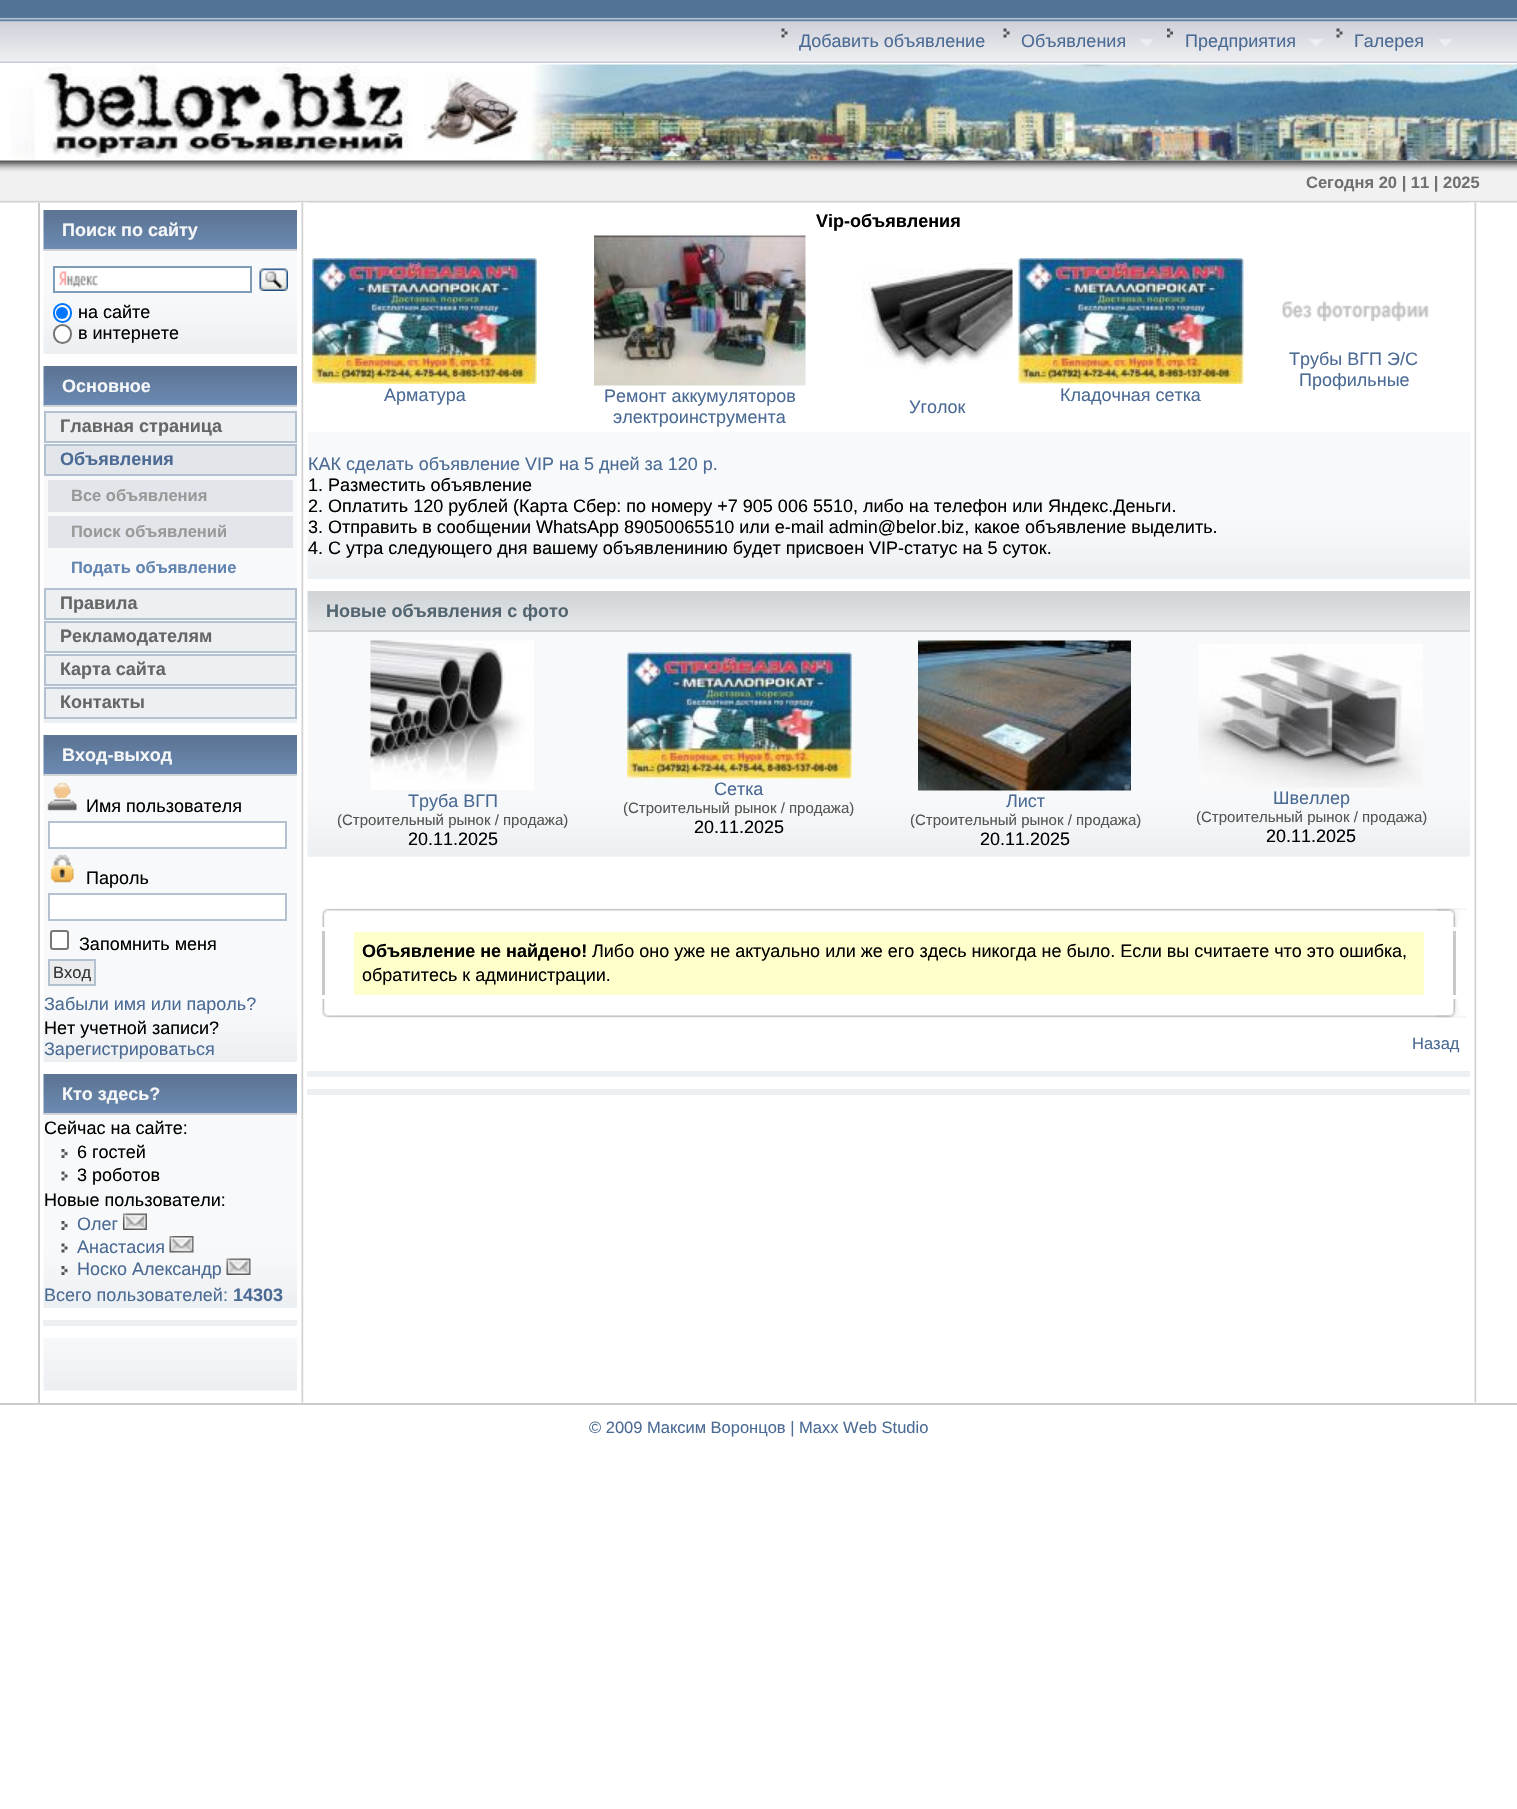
void draw(SkCanvas* canvas) {
	SkPaint fill;
	fill.setAntiAlias(true);
	auto makeFont = [&](const char* family, int weight, float size, bool italic = false) {
		SkFontStyle style(weight, SkFontStyle::kNormal_Width,
			italic ? SkFontStyle::kItalic_Slant : SkFontStyle::kUpright_Slant);
		SkFont result(fontMgr->matchFamilyStyle(family, style), size);
		result.setSubpixel(true);
		return result;
	};
	auto text = [&](const char* s, float x, float y, const SkFont& font) {
		canvas->drawString(s, x, y, font, fill);
	};
	auto box = [&](float l, float t, float r, float b) {
		canvas->drawRect(SkRect::MakeLTRB(l, t, r, b), fill);
	};
	auto picture = [&](const char* path, float l, float t, float r, float b) {
		auto image = SkImages::DeferredFromEncodedData(SkData::MakeFromFileName(path));
		canvas->drawImageRect(image, SkRect::MakeLTRB(l, t, r, b), SkSamplingOptions());
	};
	canvas->clear(0xFFFFFFFF);
	picture("image0.png", 0, 0, 1517, 63);
	picture("image1.png", 781, 28, 788, 38);
	picture("image1.png", 1003, 28, 1010, 38);
	picture("image2.png", 1140, 39, 1154, 47);
	picture("image3.png", 1167, 28, 1173, 38);
	picture("image4.png", 1309, 39, 1323, 47);
	picture("image5.png", 1336, 28, 1343, 38);
	picture("image4.png", 1438, 39, 1452, 47);
	picture("image6.png", 11, 64, 1517, 161);
	picture("image7.png", 424, 72, 521, 147);
	picture("image8.png", 0, 160, 1517, 203);
	fill.setColor(0xFFCCCCCC);
	box(38, 203, 40, 1403);
	fill.setColor(0xFFF8F9FA);
	box(44, 251, 297, 291);
	picture("image9.png", 43, 291, 297, 354);
	picture("image10.png", 43, 210, 297, 251);
	fill.setColor(0xFFD2D5D8);
	box(44, 249, 297, 251);
	fill.setColor(0xFFFFFFFF);
	box(55, 268, 250, 291);
	picture("image11.png", 58, 271, 98, 288);
	fill.setStyle(SkPaint::kStroke_Style);
	fill.setStrokeWidth(2);
	fill.setColor(0xFF7F9DB9);
	canvas->drawRect(SkRect::MakeLTRB(54, 267, 251, 292), fill);
	picture("image12.png", 259, 268, 288, 291);
	fill.setStyle(SkPaint::kFill_Style);
	fill.setColor(0xFFFFFFFF);
	canvas->drawRoundRect(SkRect::MakeLTRB(54, 304, 71, 322), 8.5f, 8.5f, fill);
	fill.setStyle(SkPaint::kStroke_Style);
	fill.setColor(0xFF0075FF);
	canvas->drawRoundRect(SkRect::MakeLTRB(54, 304, 71, 322), 8.5f, 8.5f, fill);
	fill.setStyle(SkPaint::kFill_Style);
	canvas->drawCircle(62, 313, 6, fill);
	fill.setColor(0xFFFFFFFF);
	canvas->drawRoundRect(SkRect::MakeLTRB(54, 325, 71, 343), 8.5f, 8.5f, fill);
	fill.setStyle(SkPaint::kStroke_Style);
	fill.setColor(0xFF767676);
	canvas->drawRoundRect(SkRect::MakeLTRB(54, 325, 71, 343), 8.5f, 8.5f, fill);
	fill.setStyle(SkPaint::kFill_Style);
	fill.setColor(0xFFF8F9FA);
	box(44, 407, 297, 654);
	picture("image9.png", 43, 660, 297, 723);
	picture("image10.png", 43, 366, 297, 407);
	fill.setColor(0xFFD2D5D8);
	box(44, 405, 297, 407);
	fill.setColor(0xFFECF0F3);
	canvas->drawRect(SkRect::MakeLTRB(45, 412, 296, 442), fill);
	fill.setStyle(SkPaint::kStroke_Style);
	fill.setColor(0xFFB4C1D1);
	canvas->drawRect(SkRect::MakeLTRB(45, 412, 296, 442), fill);
	fill.setStyle(SkPaint::kFill_Style);
	fill.setColor(0xFFE2E5EA);
	canvas->drawRect(SkRect::MakeLTRB(45, 445, 296, 475), fill);
	fill.setStyle(SkPaint::kStroke_Style);
	fill.setColor(0xFFB4C1D1);
	canvas->drawRect(SkRect::MakeLTRB(45, 445, 296, 475), fill);
	fill.setStyle(SkPaint::kFill_Style);
	fill.setColor(0xFFE2E5EA);
	box(48, 480, 293, 512);
	box(48, 516, 293, 548);
	fill.setColor(0xFFECF0F3);
	canvas->drawRect(SkRect::MakeLTRB(45, 589, 296, 619), fill);
	fill.setStyle(SkPaint::kStroke_Style);
	fill.setColor(0xFFB4C1D1);
	canvas->drawRect(SkRect::MakeLTRB(45, 589, 296, 619), fill);
	fill.setStyle(SkPaint::kFill_Style);
	fill.setColor(0xFFECF0F3);
	canvas->drawRect(SkRect::MakeLTRB(45, 622, 296, 652), fill);
	fill.setStyle(SkPaint::kStroke_Style);
	fill.setColor(0xFFB4C1D1);
	canvas->drawRect(SkRect::MakeLTRB(45, 622, 296, 652), fill);
	fill.setStyle(SkPaint::kFill_Style);
	fill.setColor(0xFFECF0F3);
	canvas->drawRect(SkRect::MakeLTRB(45, 655, 296, 685), fill);
	fill.setStyle(SkPaint::kStroke_Style);
	fill.setColor(0xFFB4C1D1);
	canvas->drawRect(SkRect::MakeLTRB(45, 655, 296, 685), fill);
	fill.setStyle(SkPaint::kFill_Style);
	fill.setColor(0xFFECF0F3);
	box(46, 689, 295, 710);
	fill.setStyle(SkPaint::kStroke_Style);
	fill.setColor(0xFFB4C1D1);
	canvas->drawRect(SkRect::MakeLTRB(45, 688, 296, 718), fill);
	fill.setStyle(SkPaint::kFill_Style);
	fill.setColor(0xFFF8F9FA);
	box(44, 776, 297, 999);
	picture("image9.png", 43, 999, 297, 1062);
	picture("image10.png", 43, 735, 297, 776);
	fill.setColor(0xFFD2D5D8);
	box(44, 774, 297, 776);
	picture("image13.png", 47, 782, 77, 811);
	fill.setColor(0xFFFFFFFF);
	canvas->drawRect(SkRect::MakeLTRB(49, 822, 286, 848), fill);
	fill.setStyle(SkPaint::kStroke_Style);
	fill.setColor(0xFFB4C1D1);
	canvas->drawRect(SkRect::MakeLTRB(49, 822, 286, 848), fill);
	picture("image14.png", 50, 854, 74, 883);
	fill.setStyle(SkPaint::kFill_Style);
	fill.setColor(0xFFFFFFFF);
	canvas->drawRect(SkRect::MakeLTRB(49, 894, 286, 920), fill);
	fill.setStyle(SkPaint::kStroke_Style);
	fill.setColor(0xFFB4C1D1);
	canvas->drawRect(SkRect::MakeLTRB(49, 894, 286, 920), fill);
	fill.setStyle(SkPaint::kFill_Style);
	fill.setColor(0xFFFFFFFF);
	canvas->drawRoundRect(SkRect::MakeLTRB(51, 931, 68, 949), 2, 2, fill);
	fill.setStyle(SkPaint::kStroke_Style);
	fill.setColor(0xFF767676);
	canvas->drawRoundRect(SkRect::MakeLTRB(51, 931, 68, 949), 2, 2, fill);
	fill.setStyle(SkPaint::kFill_Style);
	fill.setColor(0xFFEAECEE);
	canvas->drawRect(SkRect::MakeLTRB(49, 960, 95, 985), fill);
	fill.setStyle(SkPaint::kStroke_Style);
	fill.setColor(0xFFB4C1D1);
	canvas->drawRect(SkRect::MakeLTRB(49, 960, 95, 985), fill);
	fill.setStyle(SkPaint::kFill_Style);
	fill.setColor(0xFFF8F9FA);
	box(44, 1115, 297, 1245);
	picture("image9.png", 43, 1245, 297, 1308);
	picture("image10.png", 43, 1074, 297, 1115);
	fill.setColor(0xFFD2D5D8);
	box(44, 1113, 297, 1115);
	picture("image15.png", 61, 1149, 68, 1158);
	picture("image16.png", 61, 1171, 68, 1181);
	picture("image15.png", 61, 1221, 68, 1230);
	picture("image17.png", 123, 1213, 147, 1230);
	picture("image18.png", 61, 1243, 68, 1253);
	picture("image19.png", 169, 1236, 194, 1253);
	picture("image20.png", 61, 1266, 68, 1275);
	picture("image21.png", 226, 1258, 251, 1275);
	fill.setColor(0xFFEDF0F3);
	box(43, 1320, 297, 1326);
	fill.setColor(0xFFF8F9FA);
	box(44, 1390, 297, 1391);
	picture("image22.png", 43, 1338, 297, 1391);
	picture("image23.png", 297, 202, 308, 1403);
	picture("image24.png", 1282, 301, 1429, 322);
	picture("image25.png", 312, 258, 537, 384);
	picture("image26.png", 594, 235, 806, 386);
	picture("image27.png", 862, 263, 1013, 369);
	picture("image28.png", 1018, 258, 1244, 384);
	box(308, 432, 1470, 516);
	picture("image29.png", 307, 516, 1470, 579);
	box(308, 632, 1470, 857);
	picture("image30.png", 307, 794, 1470, 857);
	picture("image31.png", 307, 591, 1470, 632);
	fill.setColor(0xFFD2D5D8);
	box(308, 630, 1470, 632);
	picture("image32.png", 370, 640, 534, 790);
	picture("image33.png", 627, 652, 852, 779);
	picture("image34.png", 918, 640, 1131, 791);
	picture("image35.png", 1198, 644, 1423, 788);
	picture("image36.png", 322, 908, 1466, 927);
	picture("image37.png", 1437, 908, 1466, 927);
	fill.setColor(0xFFC9C9C9);
	box(322, 931, 325, 995);
	box(1453, 931, 1456, 995);
	fill.setColor(0xFFFFFFCC);
	box(354, 932, 1424, 995);
	picture("image38.png", 322, 999, 1466, 1018);
	picture("image39.png", 1437, 999, 1466, 1018);
	fill.setColor(0xFFEDF0F3);
	box(307, 1071, 1470, 1077);
	box(307, 1089, 1470, 1095);
	picture("image23.png", 1470, 202, 1481, 1403);
	fill.setColor(0xFFCCCCCC);
	box(0, 1403, 1517, 1405);
	auto font1 = makeFont("Liberation Sans", 400, 18);
	fill.setColor(0xFF4B6B94);
	text("Добавить объявление", 799, 47, font1);
	text("Объявления", 1021, 47, font1);
	text("Предприятия", 1185, 47, font1);
	text("Галерея", 1354, 47, font1);
	auto font2 = makeFont("Liberation Sans", 700, 16.5f);
	fill.setColor(0xFF707070);
	text("Сегодня 20 | 11 | 2025", 1306, 188, font2);
	auto font3 = makeFont("Liberation Sans", 700, 18);
	fill.setColor(0xFFF6F7F9);
	text("Поиск по сайту", 62, 236, font3);
	fill.setColor(0xFF000000);
	text("на сайте", 78, 318, font1);
	text("в интернете", 78, 339, font1);
	fill.setColor(0xFFF6F7F9);
	text("Основное", 62, 392, font3);
	fill.setColor(0xFF666666);
	text("Главная страница", 60, 432, font3);
	fill.setColor(0xFF4B6B94);
	text("Объявления", 60, 465, font3);
	fill.setColor(0xFF999999);
	text("Все объявления", 71, 501, font2);
	text("Поиск объявлений", 71, 537, font2);
	fill.setColor(0xFF6284B0);
	text("Подать объявление", 71, 573, font2);
	fill.setColor(0xFF666666);
	text("Правила", 60, 609, font3);
	text("Рекламодателям", 60, 642, font3);
	text("Карта сайта", 60, 675, font3);
	text("Контакты", 60, 708, font3);
	fill.setColor(0xFFF6F7F9);
	text("Вход-выход", 62, 761, font3);
	fill.setColor(0xFF000000);
	text("Имя пользователя", 86, 812, font1);
	text("Пароль", 86, 884, font1);
	text("Запомнить меня", 79, 950, font1);
	auto font4 = makeFont("Liberation Sans", 400, 16.5f);
	fill.setColor(0xFF333333);
	text("Вход", 53, 978, font4);
	fill.setColor(0xFF4B6B94);
	text("Забыли имя или пароль?", 44, 1010, font1);
	fill.setColor(0xFF000000);
	text("Нет учетной записи?", 44, 1034, font1);
	fill.setColor(0xFF4B6B94);
	text("Зарегистрироваться", 44, 1055, font1);
	fill.setColor(0xFFF6F7F9);
	text("Кто здесь?", 62, 1100, font3);
	fill.setColor(0xFF000000);
	text("Сейчас на сайте:", 44, 1134, font1);
	text("6 гостей", 77, 1158, font1);
	text("3 роботов", 77, 1181, font1);
	text("Новые пользователи:", 44, 1206, font1);
	fill.setColor(0xFF4B6B94);
	text("Олег", 77, 1230, font1);
	text("Анастасия", 77, 1253, font1);
	text("Носко Александр", 77, 1275, font1);
	text("Всего пользователей:", 44, 1301, font1);
	text("14303", 233, 1301, font3);
	fill.setColor(0xFF000000);
	text("Vip-объявления", 816, 227, font3);
	fill.setColor(0xFF4B6B94);
	text("Трубы ВГП Э/С", 1289, 365, font1);
	text("Профильные", 1299, 386, font1);
	text("Арматура", 384, 401, font1);
	text("Ремонт аккумуляторов", 604, 402, font1);
	text("электроинструмента", 613, 423, font1);
	text("Уголок", 909, 413, font1);
	text("Кладочная сетка", 1060, 401, font1);
	text("КАК сделать объявление VIP на 5 дней за 120 р.", 308, 470, font1);
	fill.setColor(0xFF000000);
	text("1. Разместить объявление", 308, 491, font1);
	text("2. Оплатить 120 рублей (Карта Cбер: по номеру +7 905 006 5510, либо на телефон или Яндекс.Деньги.", 308, 512, font1);
	text("3. Отправить в сообщении WhatsApp 89050065510 или e-mail admin@belor.biz, какое объявление выделить.", 308, 533, font1);
	text("4. С утра следующего дня вашему объявленинию будет присвоен VIP-статус на 5 суток.", 308, 554, font1);
	fill.setColor(0xFF536570);
	text("Новые объявления с фото", 326, 617, font3);
	fill.setColor(0xFF4B6B94);
	text("Труба ВГП", 408, 807, font1);
	auto font5 = makeFont("Liberation Sans", 400, 15);
	fill.setColor(0xFF555555);
	text("(Строительный рынок / продажа)", 337, 825, font5);
	fill.setColor(0xFF000000);
	text("20.11.2025", 408, 845, font1);
	fill.setColor(0xFF4B6B94);
	text("Сетка", 714, 795, font1);
	fill.setColor(0xFF555555);
	text("(Строительный рынок / продажа)", 623, 813, font5);
	fill.setColor(0xFF000000);
	text("20.11.2025", 694, 833, font1);
	fill.setColor(0xFF4B6B94);
	text("Лист", 1006, 807, font1);
	fill.setColor(0xFF555555);
	text("(Строительный рынок / продажа)", 910, 825, font5);
	fill.setColor(0xFF000000);
	text("20.11.2025", 980, 845, font1);
	fill.setColor(0xFF4B6B94);
	text("Швеллер", 1273, 804, font1);
	fill.setColor(0xFF555555);
	text("(Строительный рынок / продажа)", 1196, 822, font5);
	fill.setColor(0xFF000000);
	text("20.11.2025", 1266, 842, font1);
	text("Объявление не найдено!", 362, 957, font3);
	text("Либо оно уже не актуально или же его здесь никогда не было. Если вы считаете что это ошибка,", 592, 957, font1);
	text("обратитесь к администрации.", 362, 981, font1);
	fill.setColor(0xFF4B6B94);
	text("Назад", 1412, 1049, font4);
	text("© 2009 Максим Воронцов | Maxx Web Studio", 589, 1433, font4);
}
